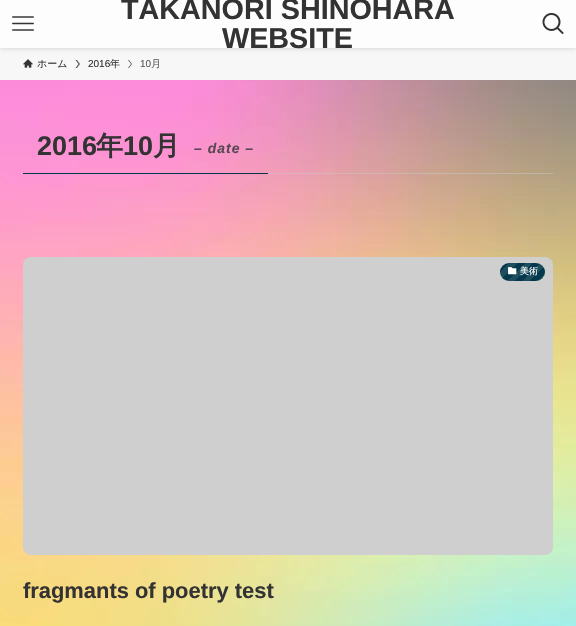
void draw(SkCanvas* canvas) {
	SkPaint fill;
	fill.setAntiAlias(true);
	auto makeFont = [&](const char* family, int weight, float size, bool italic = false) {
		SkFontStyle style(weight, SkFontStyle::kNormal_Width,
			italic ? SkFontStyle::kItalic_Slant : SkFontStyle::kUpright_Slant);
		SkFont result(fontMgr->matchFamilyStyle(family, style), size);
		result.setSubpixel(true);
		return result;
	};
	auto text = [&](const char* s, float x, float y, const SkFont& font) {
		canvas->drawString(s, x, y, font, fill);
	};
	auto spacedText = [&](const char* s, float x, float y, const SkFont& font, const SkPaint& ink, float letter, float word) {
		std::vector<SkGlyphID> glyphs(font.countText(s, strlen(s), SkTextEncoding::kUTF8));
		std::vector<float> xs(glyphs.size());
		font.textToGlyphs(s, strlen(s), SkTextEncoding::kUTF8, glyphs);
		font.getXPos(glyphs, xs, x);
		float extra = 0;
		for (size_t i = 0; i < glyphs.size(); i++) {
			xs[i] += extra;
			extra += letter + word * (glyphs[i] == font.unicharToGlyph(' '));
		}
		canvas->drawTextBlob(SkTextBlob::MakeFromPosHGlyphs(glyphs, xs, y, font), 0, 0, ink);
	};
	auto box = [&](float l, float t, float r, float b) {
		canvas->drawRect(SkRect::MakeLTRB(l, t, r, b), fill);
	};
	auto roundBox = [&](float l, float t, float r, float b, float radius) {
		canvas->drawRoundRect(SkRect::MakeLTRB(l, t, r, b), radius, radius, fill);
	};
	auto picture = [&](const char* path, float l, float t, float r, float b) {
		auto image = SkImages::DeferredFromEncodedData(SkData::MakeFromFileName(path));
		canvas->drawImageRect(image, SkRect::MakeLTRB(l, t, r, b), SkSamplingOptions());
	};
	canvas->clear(0xFFFFFFFF);
	fill.setColor(0xFFF7F7F7);
	box(0, 48, 576, 80);
	fill.setColor(0x1F000000);
	fill.setMaskFilter(SkMaskFilter::MakeBlur(kNormal_SkBlurStyle, 2));
	canvas->drawRect(SkRect::MakeLTRB(0, 1, 576, 49), fill);
	fill.setMaskFilter(nullptr);
	fill.setColor(0xFFFDFDFD);
	box(0, 0, 576, 48);
	picture("image0.png", 12, 16, 34, 31);
	picture("image1.png", 542, 13, 564, 34);
	picture("image2.png", 23, 59, 33, 68);
	fill.setColor(0xFF5A5A5A);
	canvas->drawPath(SkPathBuilder().moveTo(77, 60).lineTo(75.5f, 60).lineTo(78.5f, 64).lineTo(75.5f, 68).lineTo(77, 68).lineTo(80, 64).close().detach(), fill);
	canvas->drawPath(SkPathBuilder().moveTo(129, 60).lineTo(128, 60).lineTo(131, 64).lineTo(128, 68).lineTo(129, 68).lineTo(132, 64).close().detach(), fill);
	picture("image3.png", 0, 80, 576, 626);
	fill.setColor(0x80C7C7C7);
	box(268, 173, 553, 174);
	fill.setColor(0xFF04384C);
	box(23, 173, 268, 174);
	picture("image4.png", 23, 257, 553, 555);
	roundBox(500, 263, 545, 281, 9);
	{
		const SkColor colors[] = {0x1AFFFFFF, 0x1AFFFFFF, 0x00FFFFFF, 0x00FFFFFF, 0x1AFFFFFF, 0x1AFFFFFF, 0x00FFFFFF, 0x00FFFFFF, 0x1AFFFFFF, 0x1AFFFFFF, 0x00FFFFFF, 0x00FFFFFF, 0x1AFFFFFF, 0x1AFFFFFF, 0x00FFFFFF, 0x00FFFFFF, 0x1AFFFFFF, 0x1AFFFFFF, 0x00FFFFFF, 0x00000000};
		const float stops[] = {0, 0.1f, 0.1f, 0.2f, 0.2f, 0.3f, 0.3f, 0.4f, 0.4f, 0.5f, 0.5f, 0.6f, 0.6f, 0.7f, 0.7f, 0.8f, 0.8f, 0.9f, 0.9f, 1};
		const SkPoint ends[] = {{539, 287}, {501, 249}};
		fill.setShader(SkGradientShader::MakeLinear(ends, colors, stops, 20, SkTileMode::kClamp));
		fill.setAlpha(255);
	}
	roundBox(500, 263, 545, 281, 9);
	picture("image5.png", 508, 267, 517, 275);
	auto font1 = makeFont("Liberation Sans", 700, 28.75f);
	fill.setShader(nullptr);
	fill.setColor(0xFF333333);
	text("TAKANORI SHINOHARA", 121, 19, font1);
	text("WEBSITE", 222, 48, font1);
	auto font2 = makeFont("WenQuanYi Zen Hei", 500, 10);
	text("ホーム", 37, 67, font2);
	auto font3 = makeFont("Liberation Sans", 400, 10);
	text("2016", 88, 67, font3);
	text("年", 110, 67, font2);
	fill.setColor(0xFF5A5A5A);
	text("10", 140, 67, font3);
	text("月", 151, 67, font2);
	auto font4 = makeFont("Liberation Sans", 700, 27);
	fill.setColor(0xFF333333);
	text("2016", 37, 155, font4);
	auto font5 = makeFont("WenQuanYi Zen Hei", 700, 27);
	text("年", 96, 155, font5);
	text("10", 123, 155, font4);
	text("月", 153, 155, font5);
	auto font6 = makeFont("Liberation Sans", 700, 14, true);
	fill.setColor(0xFF5A4751);
	spacedText("– date –", 194, 153, font6, fill, 1, 0);
	auto font7 = makeFont("WenQuanYi Zen Hei", 500, 9);
	fill.setColor(0xFFFFFFFF);
	text("美術", 520, 274, font7);
	auto font8 = makeFont("Liberation Sans", 700, 21.9f);
	fill.setColor(0xFF333333);
	text("fragmants of poetry test", 23, 598, font8);
}
